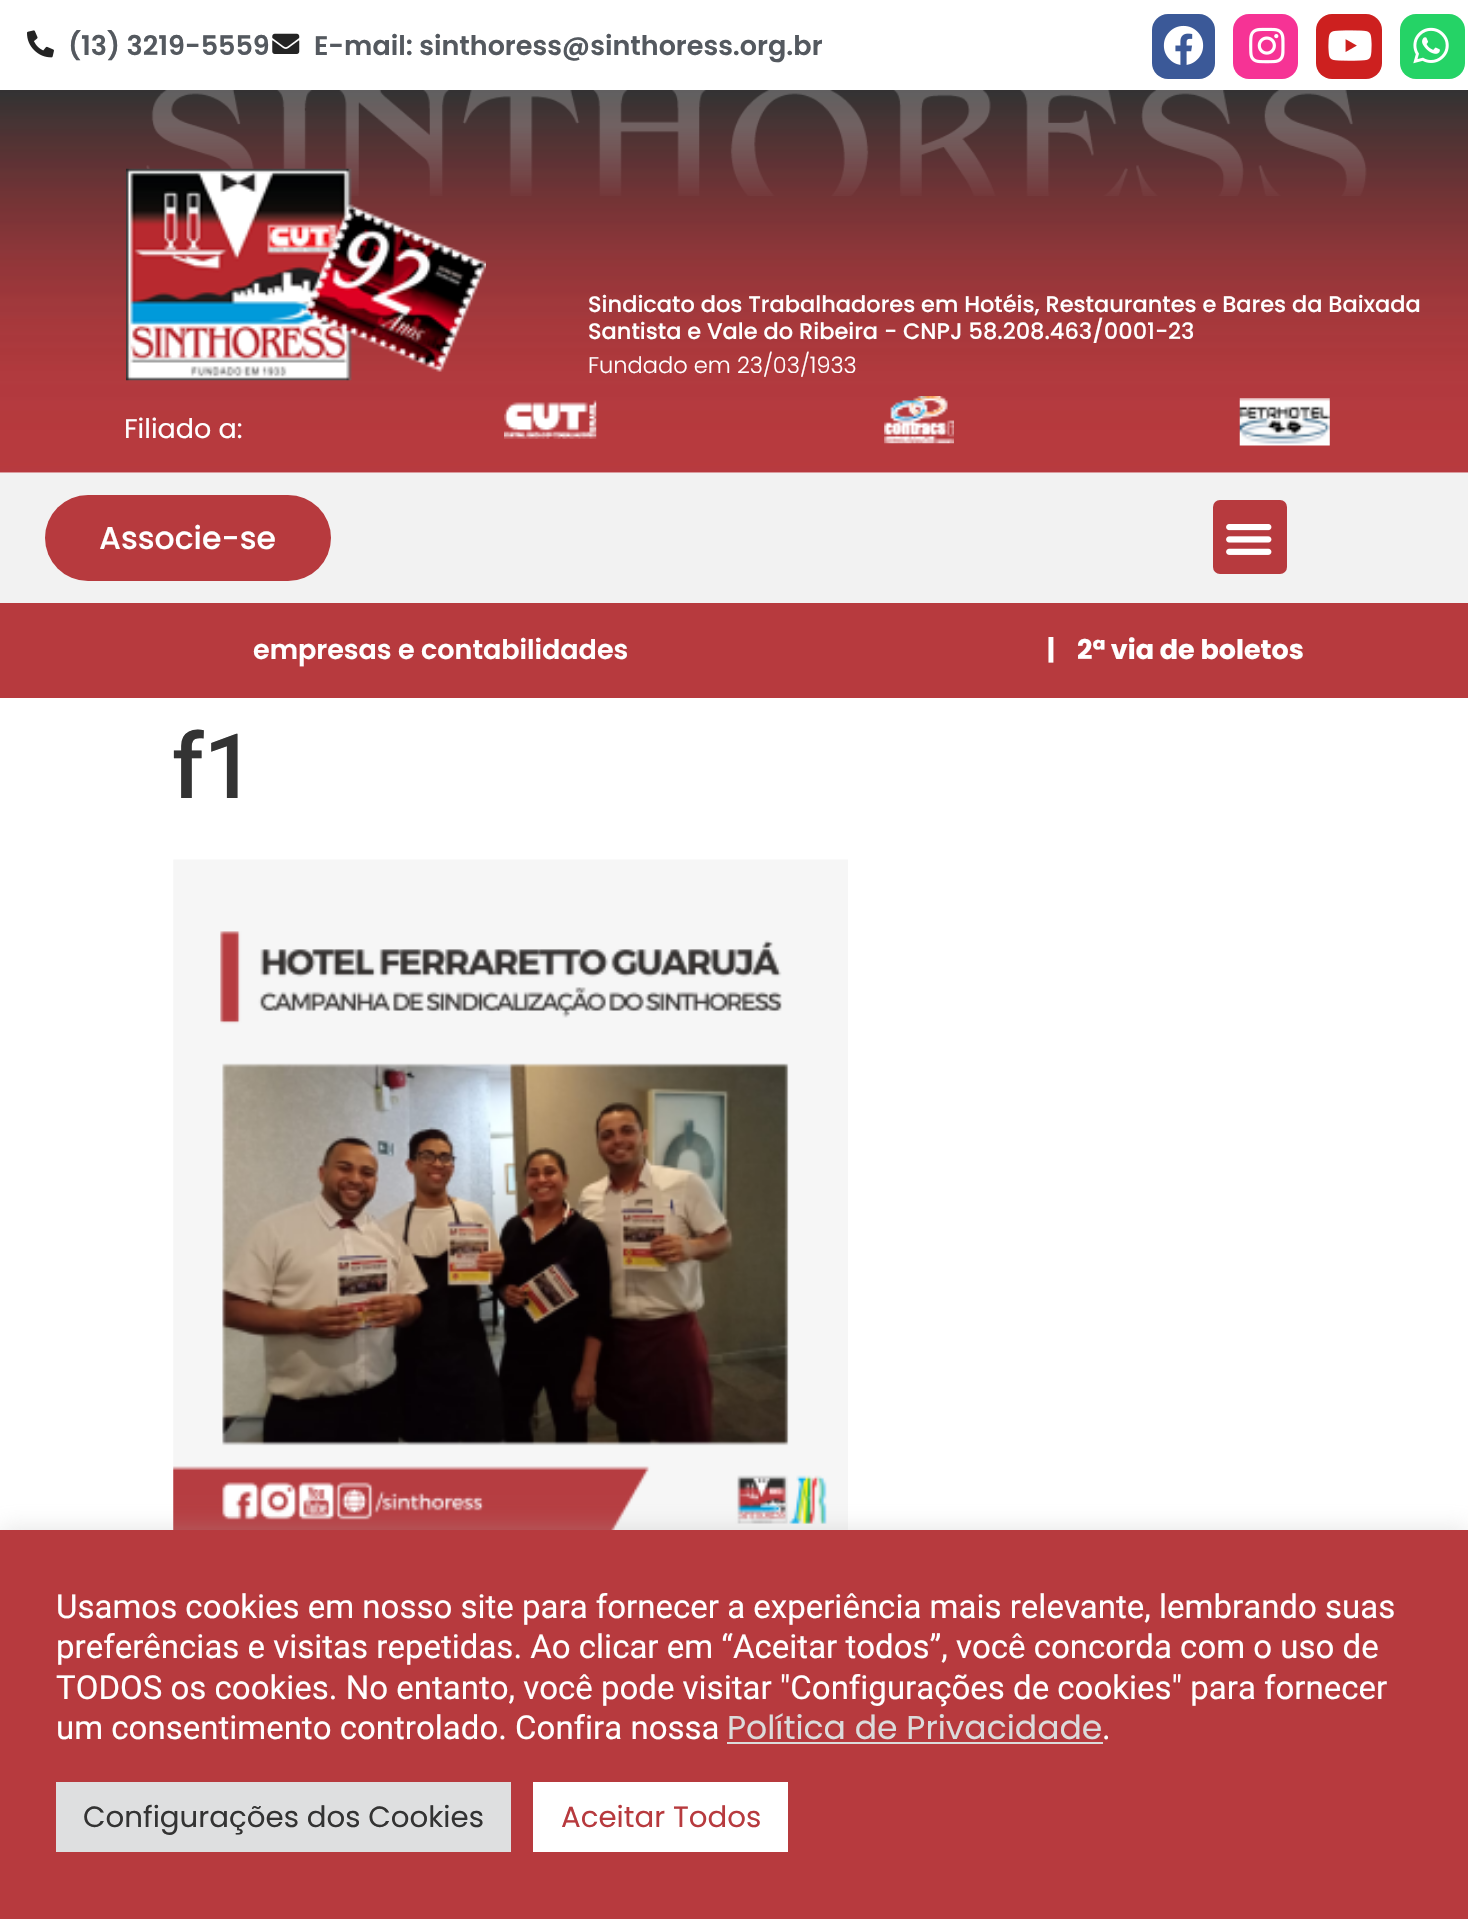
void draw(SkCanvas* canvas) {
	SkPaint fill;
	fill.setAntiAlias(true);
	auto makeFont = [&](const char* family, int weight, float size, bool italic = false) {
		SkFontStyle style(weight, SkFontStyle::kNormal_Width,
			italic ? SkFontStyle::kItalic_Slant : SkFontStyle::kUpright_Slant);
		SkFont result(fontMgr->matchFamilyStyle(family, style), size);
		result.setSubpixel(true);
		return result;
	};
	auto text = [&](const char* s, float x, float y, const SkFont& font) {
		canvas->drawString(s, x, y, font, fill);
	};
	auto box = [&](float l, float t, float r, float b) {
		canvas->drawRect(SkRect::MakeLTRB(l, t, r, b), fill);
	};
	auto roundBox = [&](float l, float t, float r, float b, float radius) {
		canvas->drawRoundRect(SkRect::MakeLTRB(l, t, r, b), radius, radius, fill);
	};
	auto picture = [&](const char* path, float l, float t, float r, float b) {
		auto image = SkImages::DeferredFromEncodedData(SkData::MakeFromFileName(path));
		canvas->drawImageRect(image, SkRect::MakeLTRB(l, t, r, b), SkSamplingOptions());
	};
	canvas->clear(0xFFFFFFFF);
	picture("image0.png", 27, 30, 54, 58);
	picture("image1.png", 272, 33, 300, 54);
	fill.setColor(0xFF3B5998);
	roundBox(1152, 14, 1215, 79, 16);
	picture("image2.png", 1163, 25, 1204, 65);
	fill.setColor(0xFFF63395);
	roundBox(1233, 14, 1298, 79, 16);
	picture("image3.png", 1249, 27, 1285, 64);
	fill.setColor(0xFFCD201F);
	roundBox(1316, 14, 1382, 79, 16);
	picture("image4.png", 1328, 30, 1372, 61);
	fill.setColor(0xFF25D366);
	roundBox(1400, 14, 1465, 79, 16);
	picture("image5.png", 1413, 27, 1449, 64);
	picture("image6.png", 0, 90, 1468, 473);
	picture("image7.png", 146, 90, 1367, 196);
	picture("image8.png", 126, 168, 486, 381);
	picture("image9.png", 504, 400, 597, 439);
	picture("image10.png", 884, 396, 954, 444);
	picture("image11.png", 1239, 398, 1330, 446);
	fill.setColor(0xFFF2F2F2);
	box(0, 473, 1468, 603);
	fill.setColor(0xFFB73A3E);
	roundBox(45, 495, 331, 581, 43);
	roundBox(1213, 500, 1287, 574, 7);
	picture("image12.png", 1226, 524, 1272, 555);
	box(0, 603, 1468, 698);
	picture("image13.png", 173, 859, 848, 1530);
	fill.setColor(0x4DACABAB);
	fill.setMaskFilter(SkMaskFilter::MakeBlur(kNormal_SkBlurStyle, 11));
	canvas->drawRect(SkRect::MakeLTRB(0, 1528, 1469, 1917), fill);
	fill.setMaskFilter(nullptr);
	fill.setColor(0xFFB73A3E);
	box(0, 1530, 1468, 1919);
	fill.setColor(0xFFDBDBDB);
	box(727, 1742, 1103, 1744);
	fill.setColor(0xFFDEDFE0);
	box(56, 1782, 511, 1852);
	fill.setColor(0xFFFFFFFF);
	box(533, 1782, 788, 1852);
	auto font1 = makeFont("Poppins", 600, 27);
	fill.setColor(0xFF54595F);
	text("(13) 3219-5559", 68, 55, font1);
	text("E-mail: sinthoress@sinthoress.org.br", 314, 55, font1);
	auto font2 = makeFont("Poppins", 500, 22.5f);
	fill.setColor(0xFFFFFFFF);
	text("Sindicato dos Trabalhadores em Hotéis, Restaurantes e Bares da Baixada", 588, 312, font2);
	text("Santista e Vale do Ribeira - CNPJ 58.208.463/0001-23", 588, 339, font2);
	auto font3 = makeFont("Poppins", 300, 22.5f);
	text("Fundado em 23/03/1933", 588, 373, font3);
	auto font4 = makeFont("Poppins", 400, 27);
	text("Filiado a:", 124, 438, font4);
	auto font5 = makeFont("Poppins", 500, 31.5f);
	text("Associe-se", 99, 549, font5);
	text("empresas e contabilidades", 253, 659, font1);
	auto font6 = makeFont("Poppins", 700, 27);
	text("|", 1047, 659, font6);
	text("2ª via de boletos", 1077, 659, font6);
	auto font7 = makeFont("Roboto", 500, 90);
	fill.setColor(0xFF333333);
	text("f1", 172, 798, font7);
	auto font8 = makeFont("Roboto", 400, 33);
	fill.setColor(0xFFFFFFFF);
	text("Usamos cookies em nosso site para fornecer a experiência mais relevante, lembrando suas", 56, 1618, font8);
	text("preferências e visitas repetidas. Ao clicar em “Aceitar todos”, você concorda com o uso de", 56, 1658, font8);
	text("TODOS os cookies. No entanto, você pode visitar \"Configurações de cookies\" para fornecer", 56, 1699, font8);
	text("um consentimento controlado. Confira nossa", 56, 1739, font8);
	auto font9 = makeFont("Poppins", 400, 33);
	fill.setColor(0xFFDBDBDB);
	text("Política de Privacidade", 727, 1739, font9);
	fill.setColor(0xFFFFFFFF);
	text(".", 1102, 1739, font8);
	auto font10 = makeFont("Poppins", 400, 29.25f);
	fill.setColor(0xFF333333);
	text("Configurações dos Cookies", 83, 1827, font10);
	fill.setColor(0xFFB73A3E);
	text("Aceitar Todos", 561, 1827, font10);
}
